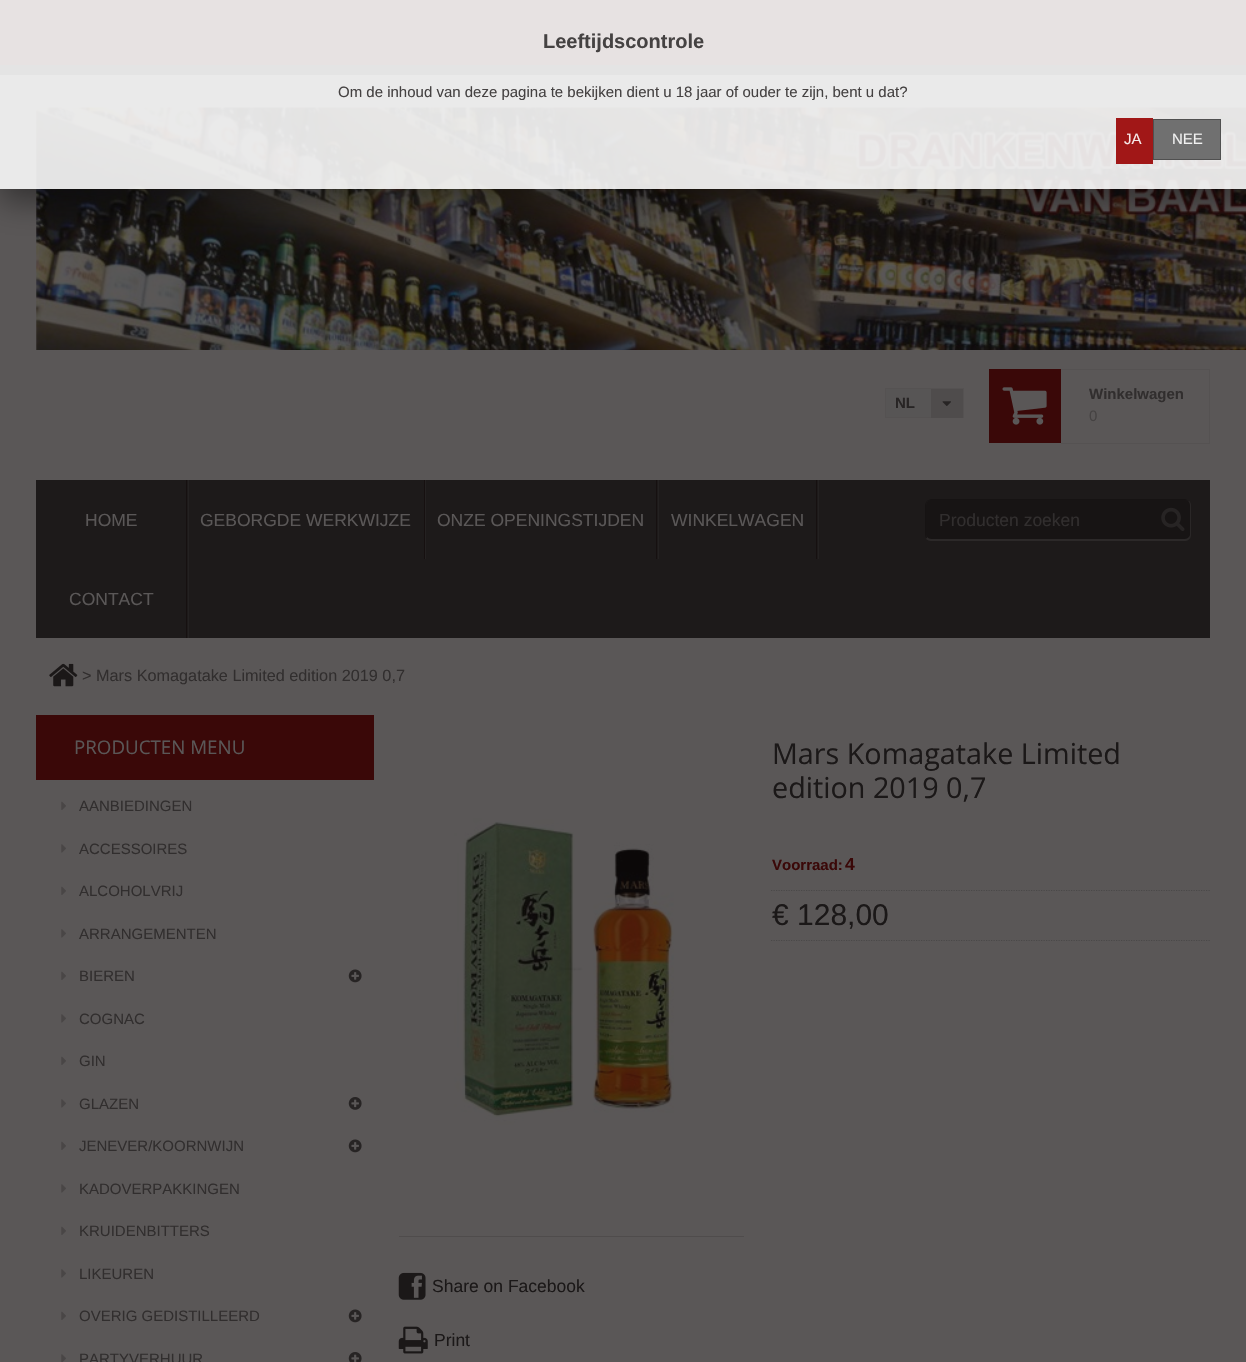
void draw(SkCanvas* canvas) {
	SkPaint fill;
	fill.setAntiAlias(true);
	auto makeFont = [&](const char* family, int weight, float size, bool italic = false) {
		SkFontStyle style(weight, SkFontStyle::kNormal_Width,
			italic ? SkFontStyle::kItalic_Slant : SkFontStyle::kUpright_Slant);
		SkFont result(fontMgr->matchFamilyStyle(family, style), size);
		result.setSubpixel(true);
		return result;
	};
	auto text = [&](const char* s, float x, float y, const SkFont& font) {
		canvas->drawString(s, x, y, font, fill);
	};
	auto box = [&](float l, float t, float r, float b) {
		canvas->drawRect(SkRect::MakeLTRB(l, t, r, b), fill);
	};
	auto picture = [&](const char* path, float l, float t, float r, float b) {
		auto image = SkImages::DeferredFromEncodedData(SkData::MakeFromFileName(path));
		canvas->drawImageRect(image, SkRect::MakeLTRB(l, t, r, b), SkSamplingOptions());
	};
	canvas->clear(0xFF3A0808);
	fill.setColor(0xFF1C1919);
	box(0, 65, 1246, 75);
	fill.setColor(0xFF5A5757);
	box(0, 75, 1246, 1362);
	picture("image0.png", 36, 107, 1246, 350);
	canvas->save();
	canvas->clipPath(SkPathBuilder(SkPathFillType::kEvenOdd).moveTo(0, 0).lineTo(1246, 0).lineTo(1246, 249).lineTo(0, 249).close().moveTo(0, 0).lineTo(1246, 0).lineTo(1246, 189).lineTo(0, 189).close().detach(), true);
	fill.setColor(0x73000000);
	fill.setMaskFilter(SkMaskFilter::MakeBlur(kNormal_SkBlurStyle, 15.5f));
	canvas->drawRect(SkRect::MakeLTRB(0, 13, 1246, 201), fill);
	fill.setMaskFilter(nullptr);
	canvas->restore();
	fill.setColor(0xE6F9F9F9);
	box(0, 0, 1246, 189);
	fill.setColor(0xE6990000);
	box(1116, 118, 1153, 164);
	fill.setColor(0xE6636363);
	canvas->drawRect(SkRect::MakeLTRB(1153.5f, 119.5f, 1220.5f, 159.5f), fill);
	fill.setStyle(SkPaint::kStroke_Style);
	fill.setStrokeWidth(1);
	fill.setColor(0xFF505050);
	canvas->drawRect(SkRect::MakeLTRB(1153.5f, 119.5f, 1220.5f, 159.5f), fill);
	fill.setStyle(SkPaint::kFill_Style);
	fill.setColor(0xFF575555);
	box(886, 389, 931, 417);
	fill.setStyle(SkPaint::kStroke_Style);
	fill.setColor(0xFF555252);
	canvas->drawRect(SkRect::MakeLTRB(885.5f, 388.5f, 963.5f, 417.5f), fill);
	fill.setStyle(SkPaint::kFill_Style);
	fill.setColor(0xFF4F4C4C);
	box(931, 389, 963, 418);
	picture("image1.png", 942, 401, 951, 406);
	fill.setColor(0xFF3A0808);
	box(989, 369, 1061, 443);
	fill.setColor(0xFF555252);
	box(1061, 369, 1210, 370);
	box(1209, 369, 1210, 444);
	box(1061, 443, 1210, 444);
	picture("image2.png", 1002, 387, 1047, 425);
	fill.setColor(0xFF1D1A1A);
	box(36, 480, 1210, 638);
	fill.setColor(0xFF242121);
	canvas->drawPath(SkPathBuilder().moveTo(38, 559).lineTo(189, 559).lineTo(189, 480).lineTo(188, 480).lineTo(188, 559).close().detach(), fill);
	fill.setColor(0xFF161010);
	box(186, 480, 187, 638);
	fill.setColor(0xFF242121);
	canvas->drawPath(SkPathBuilder().moveTo(189, 559).lineTo(426, 559).lineTo(426, 480).lineTo(425, 480).lineTo(425, 559).close().detach(), fill);
	fill.setColor(0xFF161010);
	box(424, 480, 425, 559);
	fill.setColor(0xFF242121);
	canvas->drawPath(SkPathBuilder().moveTo(426, 559).lineTo(659, 559).lineTo(659, 480).lineTo(658, 480).lineTo(658, 559).close().detach(), fill);
	fill.setColor(0xFF161010);
	box(656, 480, 657, 559);
	fill.setColor(0xFF242121);
	canvas->drawPath(SkPathBuilder().moveTo(659, 559).lineTo(819, 559).lineTo(819, 480).lineTo(818, 480).lineTo(818, 559).close().detach(), fill);
	fill.setColor(0xFF161010);
	box(816, 480, 817, 559);
	fill.setColor(0xFF242121);
	canvas->drawPath(SkPathBuilder().moveTo(38, 638).lineTo(189, 638).lineTo(189, 559).lineTo(188, 559).lineTo(188, 638).close().detach(), fill);
	fill.setColor(0xFF171414);
	canvas->drawPath(SkPathBuilder().moveTo(931, 500).lineTo(1185, 500).cubicTo(1188, 500, 1190, 502, 1190, 505).lineTo(1190, 535).cubicTo(1190, 537, 1188, 539, 1185, 539).lineTo(931, 539).cubicTo(928, 539, 926, 537, 926, 535).lineTo(926, 505).cubicTo(926, 502, 928, 500, 931, 500).close().detach(), fill);
	fill.setColor(0xFF161313);
	canvas->drawPath(SkPathBuilder().moveTo(931, 499).cubicTo(930, 499, 928, 500, 927, 501).lineTo(928, 501).lineTo(930, 500).lineTo(1185, 500).cubicTo(1186, 500, 1188, 500, 1189, 501).cubicTo(1188, 500, 1186, 499, 1185, 499).close().detach(), fill);
	fill.setColor(0xFF2A2727);
	canvas->drawPath(SkPathBuilder().moveTo(1190, 538.5f).cubicTo(1190.5f, 537.5f, 1191, 536, 1191, 535).lineTo(1191, 505).cubicTo(1191, 503.5f, 1190, 502, 1189, 501).lineTo(1188.5f, 501.5f).cubicTo(1189.5f, 502, 1190, 503.5f, 1190, 505).lineTo(1190, 535).cubicTo(1190, 536, 1189.5f, 536.5f, 1189, 537).close().detach(), fill);
	fill.setColor(0xFF2C2929);
	canvas->drawPath(SkPathBuilder().moveTo(1190, 538).cubicTo(1189, 540, 1187, 541, 1185, 541).lineTo(931, 541).cubicTo(929, 541, 928, 540, 926, 539).lineTo(927, 537).cubicTo(928, 538, 929, 539, 931, 539).lineTo(1185, 539).cubicTo(1187, 539, 1188, 538, 1189, 537).close().detach(), fill);
	fill.setColor(0xFF161313);
	canvas->drawPath(SkPathBuilder().moveTo(925, 505).lineTo(925, 535).cubicTo(925, 536.5f, 925.5f, 537.5f, 926.5f, 538.5f).lineTo(927, 537.5f).cubicTo(926.5f, 536.5f, 926, 536, 926, 535).lineTo(926, 505).cubicTo(926, 503.5f, 926.5f, 502, 927.5f, 501.5f).lineTo(927, 501).cubicTo(926, 502, 925, 503.5f, 925, 505).close().detach(), fill);
	picture("image3.png", 1161, 507, 1185, 531);
	picture("image4.png", 49, 663, 78, 687);
	fill.setColor(0xFF3A0808);
	box(36, 715, 374, 780);
	picture("image5.png", 61, 801, 66, 810);
	picture("image6.png", 61, 844, 66, 853);
	picture("image5.png", 61, 886, 66, 895);
	picture("image6.png", 61, 929, 66, 938);
	picture("image5.png", 61, 971, 66, 980);
	picture("image7.png", 348, 969, 362, 983);
	picture("image6.png", 61, 1014, 66, 1023);
	picture("image5.png", 61, 1056, 66, 1065);
	picture("image6.png", 61, 1099, 66, 1108);
	picture("image8.png", 348, 1097, 362, 1110);
	picture("image5.png", 61, 1141, 66, 1150);
	picture("image7.png", 348, 1139, 362, 1153);
	picture("image6.png", 61, 1184, 66, 1193);
	picture("image5.png", 61, 1226, 66, 1235);
	picture("image6.png", 61, 1269, 66, 1278);
	picture("image5.png", 61, 1311, 66, 1320);
	picture("image7.png", 348, 1309, 362, 1323);
	picture("image9.png", 61, 1354, 66, 1362);
	picture("image10.png", 348, 1352, 362, 1362);
	fill.setStyle(SkPaint::kStroke_Style);
	fill.setStrokeWidth(1.2f);
	fill.setColor(0xFF4A4848);
	fill.setPathEffect(SkDashPathEffect::Make({{1.25f, 1.25f}}, 0));
	canvas->drawPath(SkPathBuilder().moveTo(771, 890.5f).lineTo(1210, 890.5f).detach(), fill);
	fill.setPathEffect(nullptr);
	fill.setPathEffect(SkDashPathEffect::Make({{1.25f, 1.25f}}, 0));
	canvas->drawPath(SkPathBuilder().moveTo(771, 940.5f).lineTo(1210, 940.5f).detach(), fill);
	fill.setPathEffect(nullptr);
	picture("image11.png", 454, 818, 674, 1125);
	fill.setStyle(SkPaint::kFill_Style);
	fill.setColor(0xFF4F4C4C);
	box(399, 1236, 744, 1237);
	picture("image12.png", 398, 1272, 426, 1300);
	picture("image13.png", 398, 1326, 428, 1354);
	auto font1 = makeFont("Liberation Sans", 700, 20);
	fill.setColor(0xFF454242);
	text("Leeftijdscontrole", 543, 48, font1);
	auto font2 = makeFont("Liberation Sans", 400, 15);
	text("Om de inhoud van deze pagina te bekijken dient u 18 jaar of ouder te zijn, bent u dat?", 338, 97, font2);
	fill.setColor(0xFFF6E8E8);
	text("JA", 1124, 144, font2);
	fill.setColor(0xFFF1F1F1);
	text("NEE", 1172, 144, font2);
	auto font3 = makeFont("Liberation Sans", 700, 15);
	fill.setColor(0xFF272424);
	text("NL", 895, 408, font3);
	fill.setColor(0xFF312E2E);
	text("Winkelwagen", 1089, 399, font3);
	fill.setColor(0xFF454242);
	text("0", 1089, 421, font2);
	auto font4 = makeFont("Liberation Sans", 400, 17.5f);
	fill.setColor(0xFF5A5757);
	text("HOME", 85, 526, font4);
	text("GEBORGDE WERKWIJZE", 200, 526, font4);
	text("ONZE OPENINGSTIJDEN", 437, 526, font4);
	text("WINKELWAGEN", 671, 526, font4);
	text("CONTACT", 69, 605, font4);
	fill.setColor(0xFF312E2E);
	text("Producten zoeken", 939, 526, font4);
	auto font5 = makeFont("Liberation Sans", 400, 16.25f);
	text("> Mars Komagatake Limited edition 2019 0,7", 82, 681, font5);
	auto font6 = makeFont("Open Sans", 400, 18.75f);
	fill.setColor(0xFF5A5757);
	text("PRODUCTEN MENU", 74, 754, font6);
	fill.setColor(0xFF312E2E);
	text("AANBIEDINGEN", 79, 811, font2);
	text("ACCESSOIRES", 79, 854, font2);
	text("ALCOHOLVRIJ", 79, 896, font2);
	text("ARRANGEMENTEN", 79, 939, font2);
	text("BIEREN", 79, 981, font2);
	text("COGNAC", 79, 1024, font2);
	text("GIN", 79, 1066, font2);
	text("GLAZEN", 79, 1109, font2);
	text("JENEVER/KOORNWIJN", 79, 1151, font2);
	text("KADOVERPAKKINGEN", 79, 1194, font2);
	text("KRUIDENBITTERS", 79, 1236, font2);
	text("LIKEUREN", 79, 1279, font2);
	text("OVERIG GEDISTILLEERD", 79, 1321, font2);
	text("PARTYVERHUUR", 79, 1364, font2);
	auto font7 = makeFont("Open Sans", 400, 28.75f);
	fill.setColor(0xFF1B1818);
	text("Mars Komagatake Limited", 772, 764, font7);
	text("edition 2019 0,7", 772, 798, font7);
	fill.setColor(0xFF3A0808);
	text("Voorraad:", 772, 870, font3);
	auto font8 = makeFont("Liberation Sans", 700, 17.5f);
	text("4", 845, 870, font8);
	auto font9 = makeFont("Liberation Sans", 400, 30);
	fill.setColor(0xFF1B1818);
	text("€ 128,00", 772, 925, font9);
	text("Share on Facebook", 432, 1292, font4);
	text("Print", 434, 1346, font4);
}
